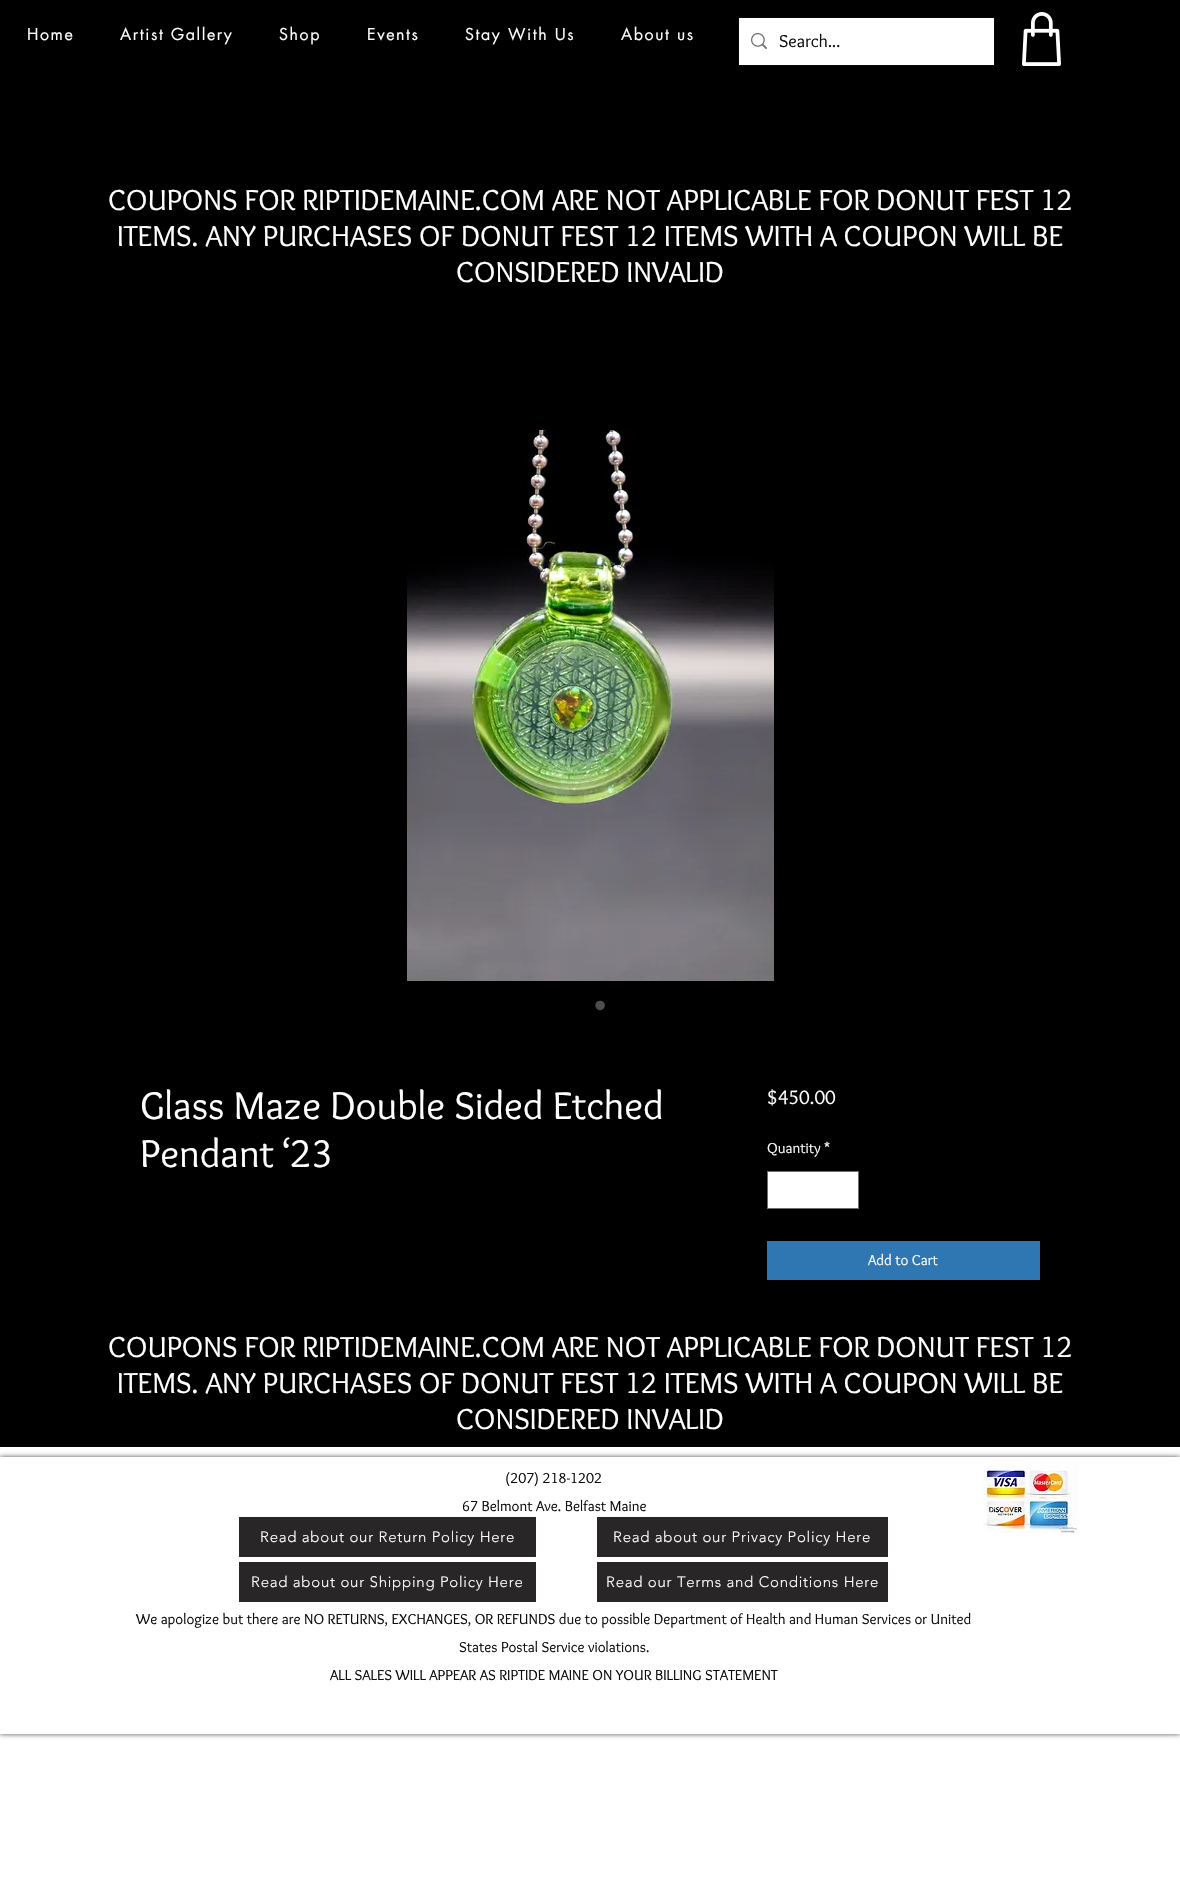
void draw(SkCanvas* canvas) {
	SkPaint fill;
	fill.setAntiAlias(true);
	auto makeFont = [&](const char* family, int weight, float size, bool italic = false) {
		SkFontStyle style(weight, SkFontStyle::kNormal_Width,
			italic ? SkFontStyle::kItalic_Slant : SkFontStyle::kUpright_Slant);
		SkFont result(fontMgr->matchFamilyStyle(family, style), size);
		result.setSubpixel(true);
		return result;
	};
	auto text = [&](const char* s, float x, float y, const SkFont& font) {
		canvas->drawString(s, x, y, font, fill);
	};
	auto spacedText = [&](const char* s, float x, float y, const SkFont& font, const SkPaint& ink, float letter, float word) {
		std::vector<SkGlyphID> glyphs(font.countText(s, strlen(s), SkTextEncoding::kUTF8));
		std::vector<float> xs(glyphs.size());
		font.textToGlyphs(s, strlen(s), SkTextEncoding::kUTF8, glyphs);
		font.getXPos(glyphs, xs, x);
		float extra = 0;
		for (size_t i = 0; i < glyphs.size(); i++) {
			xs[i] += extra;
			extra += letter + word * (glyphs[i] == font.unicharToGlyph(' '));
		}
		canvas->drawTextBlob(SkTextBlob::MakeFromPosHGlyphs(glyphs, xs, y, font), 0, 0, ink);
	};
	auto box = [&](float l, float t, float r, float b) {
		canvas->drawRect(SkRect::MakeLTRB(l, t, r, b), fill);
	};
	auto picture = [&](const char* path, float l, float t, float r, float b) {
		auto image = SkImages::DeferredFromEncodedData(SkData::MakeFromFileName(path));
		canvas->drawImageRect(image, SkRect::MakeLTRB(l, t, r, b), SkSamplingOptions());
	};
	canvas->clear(0xFFFFFFFF);
	fill.setColor(0xFF000000);
	box(0, 0, 1180, 1447);
	fill.setStyle(SkPaint::kStroke_Style);
	fill.setStrokeWidth(1);
	fill.setColor(0xFF070708);
	canvas->drawRect(SkRect::MakeLTRB(738.5f, 17.5f, 994.5f, 65.5f), fill);
	fill.setStyle(SkPaint::kFill_Style);
	fill.setColor(0xFFFFFFFF);
	box(739, 18, 994, 65);
	picture("image0.png", 751, 33, 767, 50);
	picture("image1.png", 1022, 12, 1061, 66);
	picture("image2.png", 407, 430, 774, 981);
	canvas->drawRect(SkRect::MakeLTRB(767.5f, 1171.5f, 858.5f, 1208.5f), fill);
	fill.setStyle(SkPaint::kStroke_Style);
	fill.setColor(0xFF6D6D6E);
	canvas->drawRect(SkRect::MakeLTRB(767.5f, 1171.5f, 858.5f, 1208.5f), fill);
	fill.setStyle(SkPaint::kFill_Style);
	fill.setColor(0xFF2F77B3);
	box(767, 1241, 1040, 1280);
	canvas->save();
	canvas->clipPath(SkPathBuilder(SkPathFillType::kEvenOdd).moveTo(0, 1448).lineTo(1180, 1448).lineTo(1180, 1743).lineTo(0, 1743).close().moveTo(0, 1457).lineTo(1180, 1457).lineTo(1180, 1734).lineTo(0, 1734).close().detach(), true);
	fill.setColor(0xB3000000);
	fill.setMaskFilter(SkMaskFilter::MakeBlur(kNormal_SkBlurStyle, 2.5f));
	canvas->drawRect(SkRect::MakeLTRB(0, 1457, 1180, 1734), fill);
	fill.setMaskFilter(nullptr);
	canvas->restore();
	picture("image3.png", 983, 1465, 1079, 1533);
	fill.setColor(0xFF282626);
	box(239, 1517, 536, 1557);
	box(597, 1517, 888, 1557);
	box(239, 1562, 536, 1602);
	box(597, 1562, 888, 1602);
	auto font1 = makeFont("futura", 400, 16);
	fill.setColor(0xFFFFFFFF);
	spacedText("Home", 27, 40, font1, fill, 1.6f, 0);
	spacedText("Artist Gallery", 120, 40, font1, fill, 1.6f, 0);
	spacedText("Shop", 279, 40, font1, fill, 1.6f, 0);
	spacedText("Events", 367, 40, font1, fill, 1.6f, 0);
	spacedText("Stay With Us", 465, 40, font1, fill, 1.6f, 0);
	spacedText("About us", 621, 40, font1, fill, 1.6f, 0);
	auto font2 = makeFont("Overlock", 400, 18);
	fill.setColor(0xFF0C0C0D);
	text("Search...", 779, 47, font2);
	auto font3 = makeFont("Overlock", 400, 30);
	fill.setColor(0xFFFFFFFF);
	text("COUPONS FOR RIPTIDEMAINE.COM ARE NOT APPLICABLE FOR DONUT FEST 12", 108, 210, font3);
	text("ITEMS. ANY PURCHASES OF DONUT FEST 12 ITEMS WITH A COUPON WILL BE", 117, 246, font3);
	text("CONSIDERED INVALID", 456, 282, font3);
	auto font4 = makeFont("Liberation Sans", 400, 35);
	fill.setColor(0xFF4D4D4D);
	text("•", 594, 1017, font4);
	auto font5 = makeFont("Overlock", 400, 40);
	fill.setColor(0xFFFFFFFF);
	text("Glass Maze Double Sided Etched", 140, 1119, font5);
	text("Pendant ‘23", 140, 1167, font5);
	auto font6 = makeFont("Overlock", 400, 20);
	text("$450.00", 767, 1104, font6);
	auto font7 = makeFont("Overlock", 400, 15);
	text("Quantity", 767, 1153, font7);
	text("*", 824, 1153, font7);
	text("Add to Cart", 868, 1265, font7);
	text("COUPONS FOR RIPTIDEMAINE.COM ARE NOT APPLICABLE FOR DONUT FEST 12", 108, 1357, font3);
	text("ITEMS. ANY PURCHASES OF DONUT FEST 12 ITEMS WITH A COUPON WILL BE", 117, 1393, font3);
	text("CONSIDERED INVALID", 456, 1429, font3);
	fill.setColor(0xFF0C0C0D);
	text("(207) 218-1202", 505, 1483, font7);
	text("67 Belmont Ave. Belfast Maine", 462, 1511, font7);
	text("We apologize but there are NO RETURNS, EXCHANGES, OR REFUNDS due to possible Department of Health and Human Services or United", 136, 1624, font7);
	text("States Postal Service violations.", 459, 1652, font7);
	text("ALL SALES WILL APPEAR AS RIPTIDE MAINE ON YOUR BILLING STATEMENT", 330, 1680, font7);
	auto font8 = makeFont("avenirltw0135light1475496", 300, 15);
	fill.setColor(0xFFFFFFFF);
	spacedText("Read about our Return Policy Here", 260, 1542, font8, fill, 0.75f, 0);
	spacedText("Read about our Privacy Policy Here", 613, 1542, font8, fill, 0.75f, 0);
	spacedText("Read about our Shipping Policy Here", 251, 1587, font8, fill, 0.75f, 0);
	spacedText("Read our Terms and Conditions Here", 606, 1587, font8, fill, 0.75f, 0);
}
